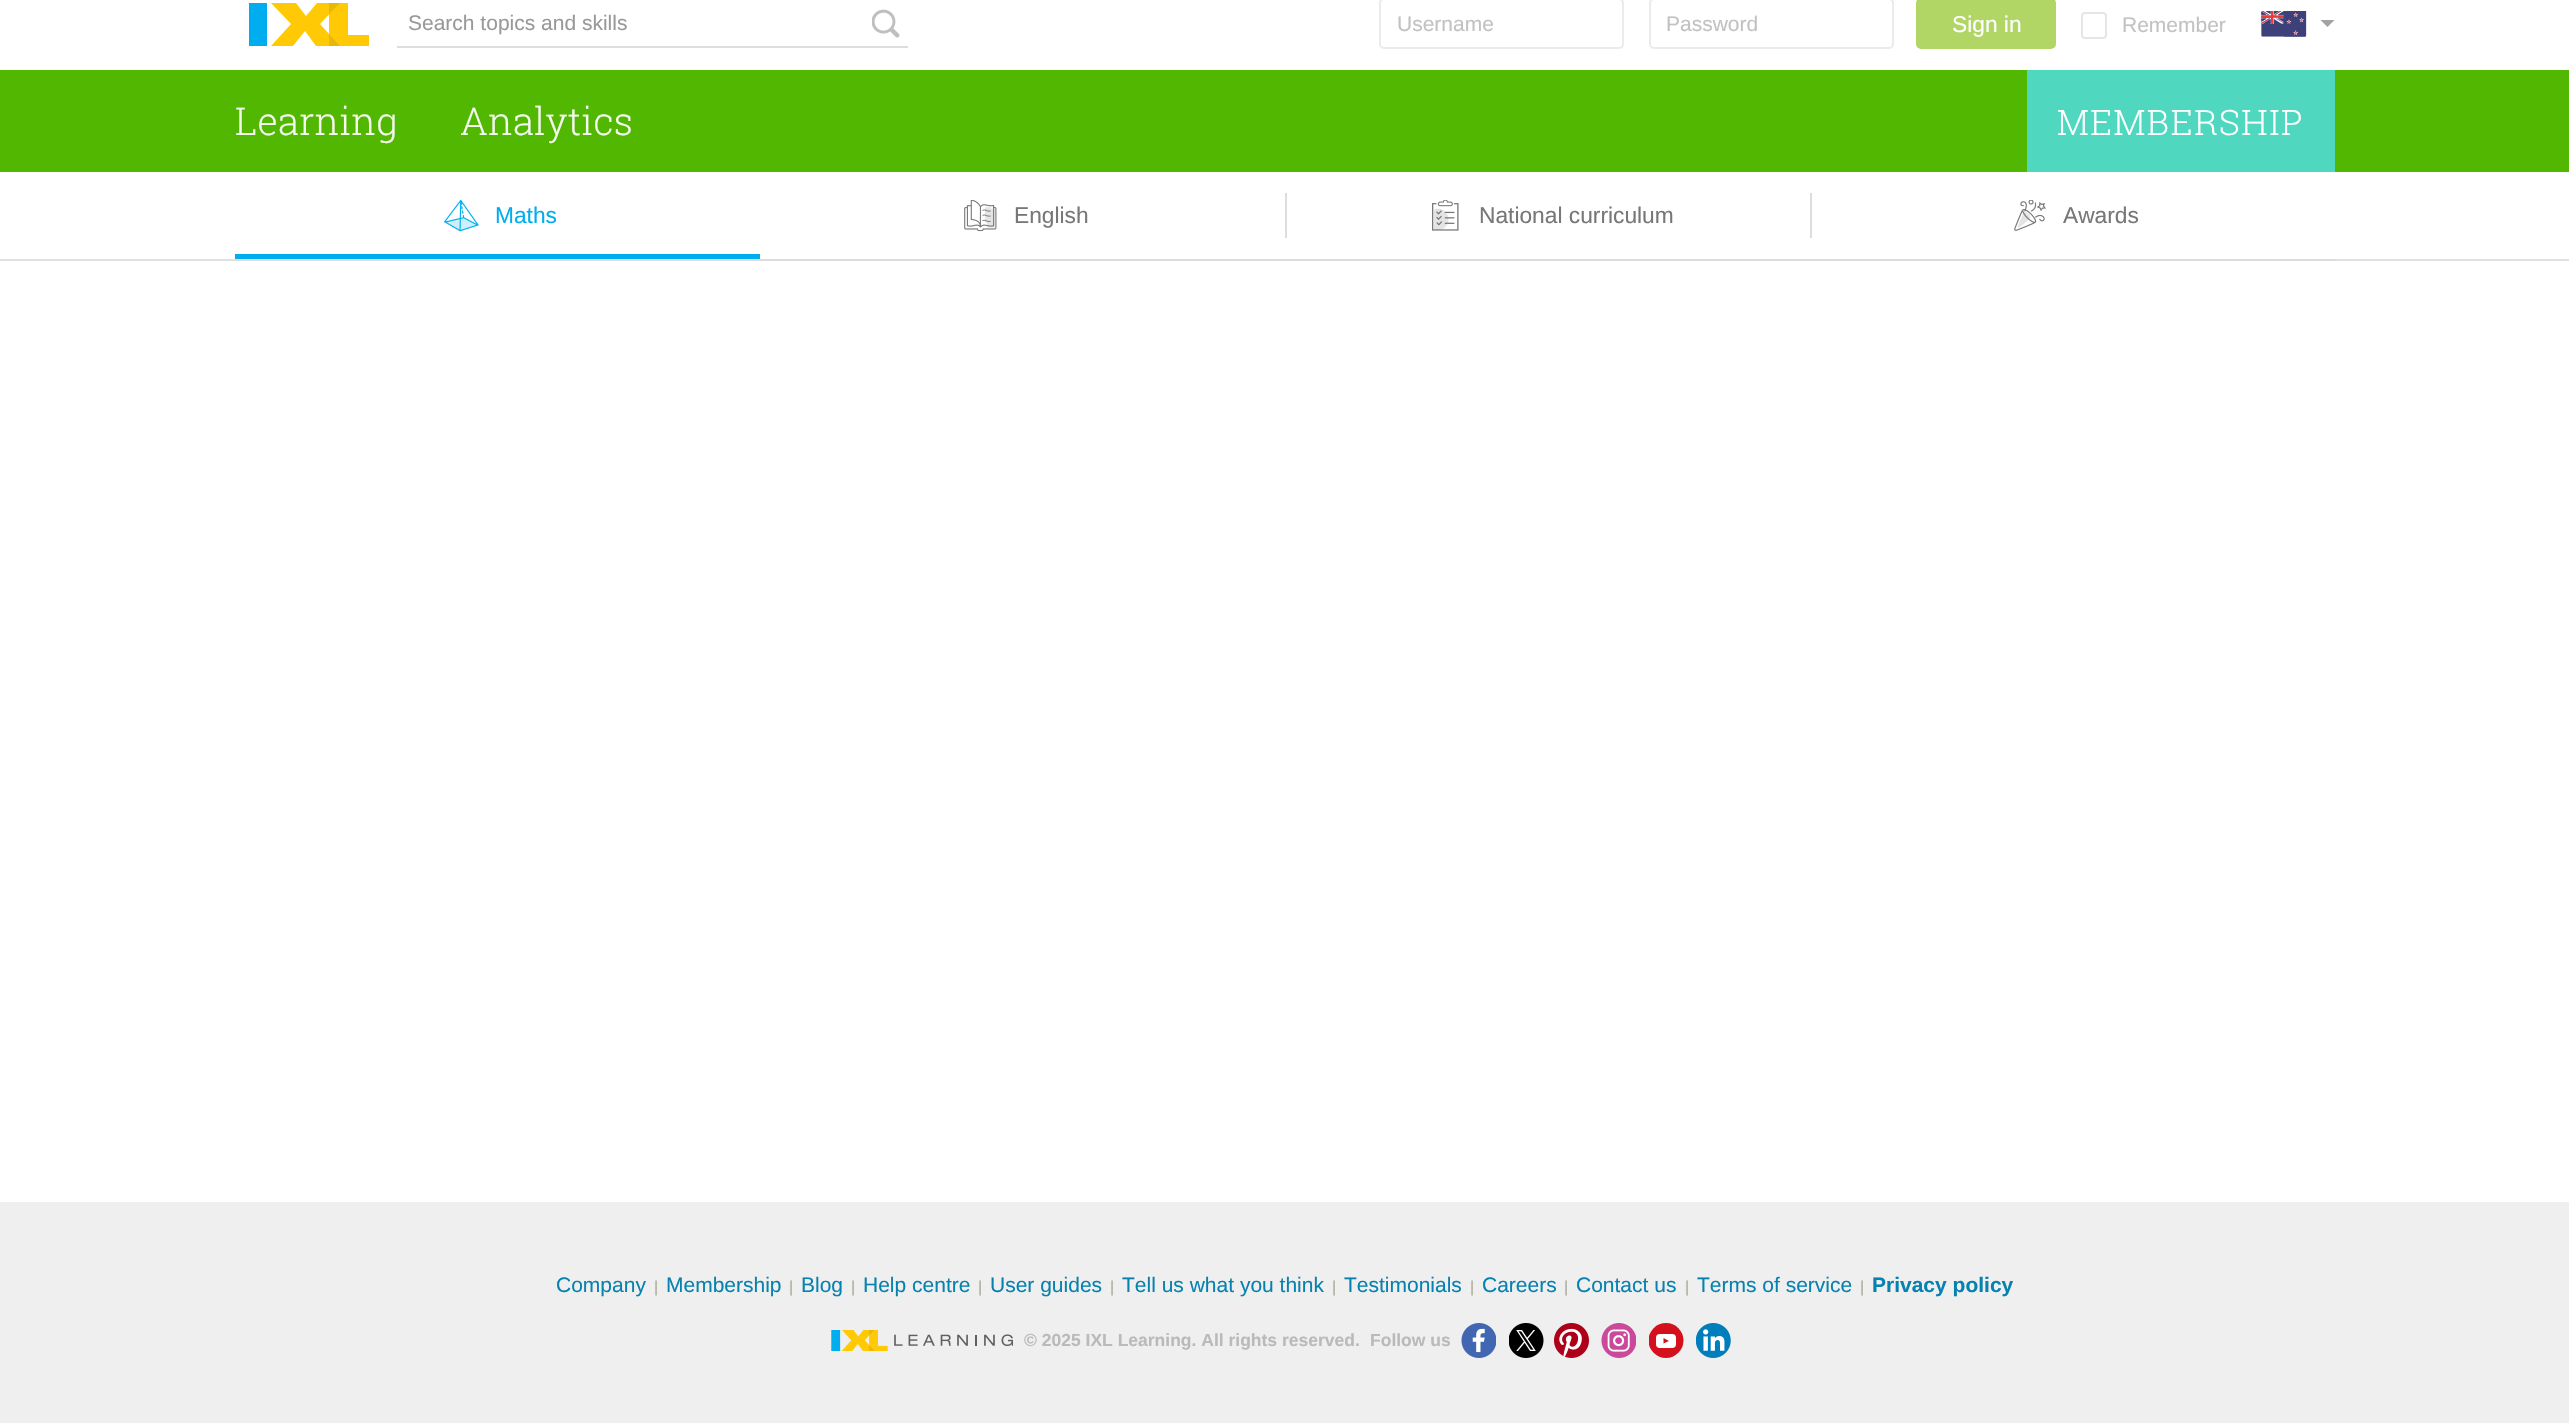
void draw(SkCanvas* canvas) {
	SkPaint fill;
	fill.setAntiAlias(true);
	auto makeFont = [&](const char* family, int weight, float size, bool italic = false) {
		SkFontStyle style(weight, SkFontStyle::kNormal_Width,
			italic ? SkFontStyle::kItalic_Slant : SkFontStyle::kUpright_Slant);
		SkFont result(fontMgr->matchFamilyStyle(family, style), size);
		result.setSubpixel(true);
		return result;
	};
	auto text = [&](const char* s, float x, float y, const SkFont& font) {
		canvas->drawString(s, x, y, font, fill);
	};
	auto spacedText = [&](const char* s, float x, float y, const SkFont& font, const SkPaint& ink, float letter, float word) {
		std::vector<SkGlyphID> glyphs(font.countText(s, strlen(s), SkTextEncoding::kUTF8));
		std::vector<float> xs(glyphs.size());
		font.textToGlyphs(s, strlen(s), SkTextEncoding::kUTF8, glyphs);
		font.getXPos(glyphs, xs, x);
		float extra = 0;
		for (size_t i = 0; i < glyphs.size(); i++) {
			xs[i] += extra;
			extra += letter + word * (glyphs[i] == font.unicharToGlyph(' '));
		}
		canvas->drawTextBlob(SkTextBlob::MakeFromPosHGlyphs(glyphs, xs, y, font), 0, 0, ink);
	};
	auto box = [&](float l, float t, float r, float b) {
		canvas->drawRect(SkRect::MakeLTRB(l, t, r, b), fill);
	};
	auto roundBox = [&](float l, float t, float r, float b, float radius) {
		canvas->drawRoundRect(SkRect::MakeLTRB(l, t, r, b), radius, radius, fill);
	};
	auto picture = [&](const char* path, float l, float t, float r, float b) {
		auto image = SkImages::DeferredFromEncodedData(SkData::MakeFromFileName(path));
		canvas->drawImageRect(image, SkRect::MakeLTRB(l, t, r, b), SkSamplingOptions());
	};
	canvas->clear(0xFFFFFFFF);
	fill.setColor(0xFFFFCA05);
	canvas->drawPath(SkPathBuilder(SkPathFillType::kEvenOdd).moveTo(329, 46).lineTo(369, 46).lineTo(369, 35).lineTo(348, 35).lineTo(348, 3).lineTo(329, 3).close().detach(), fill);
	canvas->drawPath(SkPathBuilder(SkPathFillType::kEvenOdd).moveTo(271, 46).lineTo(293, 46).lineTo(305, 31).lineTo(316, 46).lineTo(340, 46).lineTo(320, 24).lineTo(340, 3).lineTo(317, 3).lineTo(306, 16).lineTo(296, 3).lineTo(271, 3).lineTo(291, 24).close().detach(), fill);
	fill.setColor(0xFFE7B809);
	canvas->drawPath(SkPathBuilder(SkPathFillType::kEvenOdd).moveTo(329, 46).lineTo(340, 46).lineTo(329, 34).close().moveTo(340, 3).lineTo(329, 3).lineTo(329, 14).close().detach(), fill);
	fill.setColor(0xFF00AEEF);
	box(249, 3, 267, 46);
	fill.setColor(0xFFDDDDDD);
	box(397, 46, 908, 48);
	picture("image0.png", 872, 9, 900, 38);
	fill.setStyle(SkPaint::kStroke_Style);
	fill.setStrokeWidth(2);
	fill.setColor(0xFFEBEBEB);
	canvas->drawRoundRect(SkRect::MakeLTRB(1380, -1, 1623, 48), 4, 4, fill);
	canvas->drawRoundRect(SkRect::MakeLTRB(1650, -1, 1893, 48), 4, 4, fill);
	fill.setStyle(SkPaint::kFill_Style);
	fill.setColor(0xFFB2D666);
	roundBox(1916, -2, 2056, 49, 5);
	fill.setStyle(SkPaint::kStroke_Style);
	fill.setColor(0xFFE6E6E6);
	canvas->drawRoundRect(SkRect::MakeLTRB(2082, 13, 2106, 38), 3, 3, fill);
	picture("image1.png", 2261, 11, 2307, 37);
	fill.setStyle(SkPaint::kFill_Style);
	fill.setColor(0xFFA3A3A3);
	canvas->drawPath(SkPathBuilder().moveTo(2320.5f, 20).lineTo(2334.5f, 20).lineTo(2327.5f, 27).close().detach(), fill);
	fill.setColor(0xFF52B700);
	box(0, 70, 2569, 172);
	fill.setColor(0xFF4FD7C0);
	box(2027, 70, 2335, 172);
	fill.setColor(0xFFE1E1E1);
	box(0, 259, 2569, 261);
	fill.setColor(0xFFDDDDDD);
	box(235, 259, 2335, 261);
	fill.setColor(0xFF00AEEF);
	box(235, 254, 760, 259);
	picture("image2.png", 443, 200, 479, 232);
	picture("image3.png", 964, 200, 997, 232);
	fill.setColor(0xFFDDDDDD);
	box(1285, 193, 1287, 238);
	picture("image4.png", 1432, 200, 1459, 231);
	box(1810, 193, 1812, 238);
	picture("image5.png", 2014, 200, 2046, 231);
	fill.setColor(0xFFEFEFEF);
	box(0, 1202, 2569, 1423);
	picture("image6.png", 831, 1330, 1013, 1351);
	picture("image7.png", 1461, 1323, 1496, 1358);
	picture("image8.png", 1509, 1323, 1544, 1358);
	picture("image9.png", 1554, 1323, 1589, 1358);
	picture("image10.png", 1601, 1323, 1636, 1358);
	canvas->save();
	canvas->clipRect(SkRect::MakeLTRB(1649, 1323, 1684, 1358));
	fill.setColor(0xFFD4101D);
	canvas->drawCircle(1666, 1340.5f, 17.5f, fill);
	canvas->restore();
	fill.setColor(0xFFFFFFFF);
	roundBox(1656, 1334, 1676, 1348, 4);
	fill.setColor(0xFFD4101D);
	canvas->drawPath(SkPathBuilder().moveTo(1663.5f, 1338).lineTo(1663.5f, 1343.5f).lineTo(1669, 1341).close().detach(), fill);
	picture("image11.png", 1696, 1323, 1731, 1358);
	auto font1 = makeFont("Liberation Sans", 400, 21);
	fill.setColor(0xFF999999);
	text("Search topics and skills", 408, 30, font1);
	fill.setColor(0xFFC2C2C2);
	text("Username", 1397, 31, font1);
	text("Password", 1666, 31, font1);
	auto font2 = makeFont("Liberation Sans", 400, 22.75f);
	fill.setColor(0xFFFFFFFF);
	text("Sign in", 1952, 32, font2);
	fill.setColor(0xFFC2C2C2);
	text("Remember", 2122, 32, font1);
	auto font3 = makeFont("Roboto Slab", 300, 38.5f);
	fill.setColor(0xFFF4FAEF);
	text("Learning", 235, 135, font3);
	text("Analytics", 460, 135, font3);
	auto font4 = makeFont("Roboto Slab", 300, 35);
	fill.setColor(0xFFFFFFFF);
	spacedText("MEMBERSHIP", 2057, 135, font4, fill, 1.4f, 0);
	fill.setColor(0xFF00AEEF);
	text("Maths", 495, 223, font2);
	fill.setColor(0xFF777777);
	text("English", 1014, 223, font2);
	text("National curriculum", 1479, 223, font2);
	text("Awards", 2063, 223, font2);
	fill.setColor(0xFF0782B0);
	text("Company", 556, 1292, font1);
	auto font5 = makeFont("Liberation Sans", 400, 16);
	fill.setColor(0xFFACA899);
	text("|", 654, 1292, font5);
	fill.setColor(0xFF0782B0);
	text("Membership", 666, 1292, font1);
	fill.setColor(0xFFACA899);
	text("|", 789, 1292, font5);
	fill.setColor(0xFF0782B0);
	text("Blog", 801, 1292, font1);
	fill.setColor(0xFFACA899);
	text("|", 851, 1292, font5);
	fill.setColor(0xFF0782B0);
	text("Help centre", 863, 1292, font1);
	fill.setColor(0xFFACA899);
	text("|", 978, 1292, font5);
	fill.setColor(0xFF0782B0);
	text("User guides", 990, 1292, font1);
	fill.setColor(0xFFACA899);
	text("|", 1110, 1292, font5);
	fill.setColor(0xFF0782B0);
	text("Tell us what you think", 1122, 1292, font1);
	fill.setColor(0xFFACA899);
	text("|", 1332, 1292, font5);
	fill.setColor(0xFF0782B0);
	text("Testimonials", 1344, 1292, font1);
	fill.setColor(0xFFACA899);
	text("|", 1470, 1292, font5);
	fill.setColor(0xFF0782B0);
	text("Careers", 1482, 1292, font1);
	fill.setColor(0xFFACA899);
	text("|", 1564, 1292, font5);
	fill.setColor(0xFF0782B0);
	text("Contact us", 1576, 1292, font1);
	fill.setColor(0xFFACA899);
	text("|", 1685, 1292, font5);
	fill.setColor(0xFF0782B0);
	text("Terms of service", 1697, 1292, font1);
	fill.setColor(0xFFACA899);
	text("|", 1860, 1292, font5);
	auto font6 = makeFont("Liberation Sans", 700, 21);
	fill.setColor(0xFF0782B0);
	text("Privacy policy", 1872, 1292, font6);
	auto font7 = makeFont("Liberation Sans", 700, 17.5f);
	fill.setColor(0xFFBABABA);
	text("© 2025 IXL Learning. All rights reserved.", 1024, 1346, font7);
	text("Follow us", 1370, 1346, font7);
}
